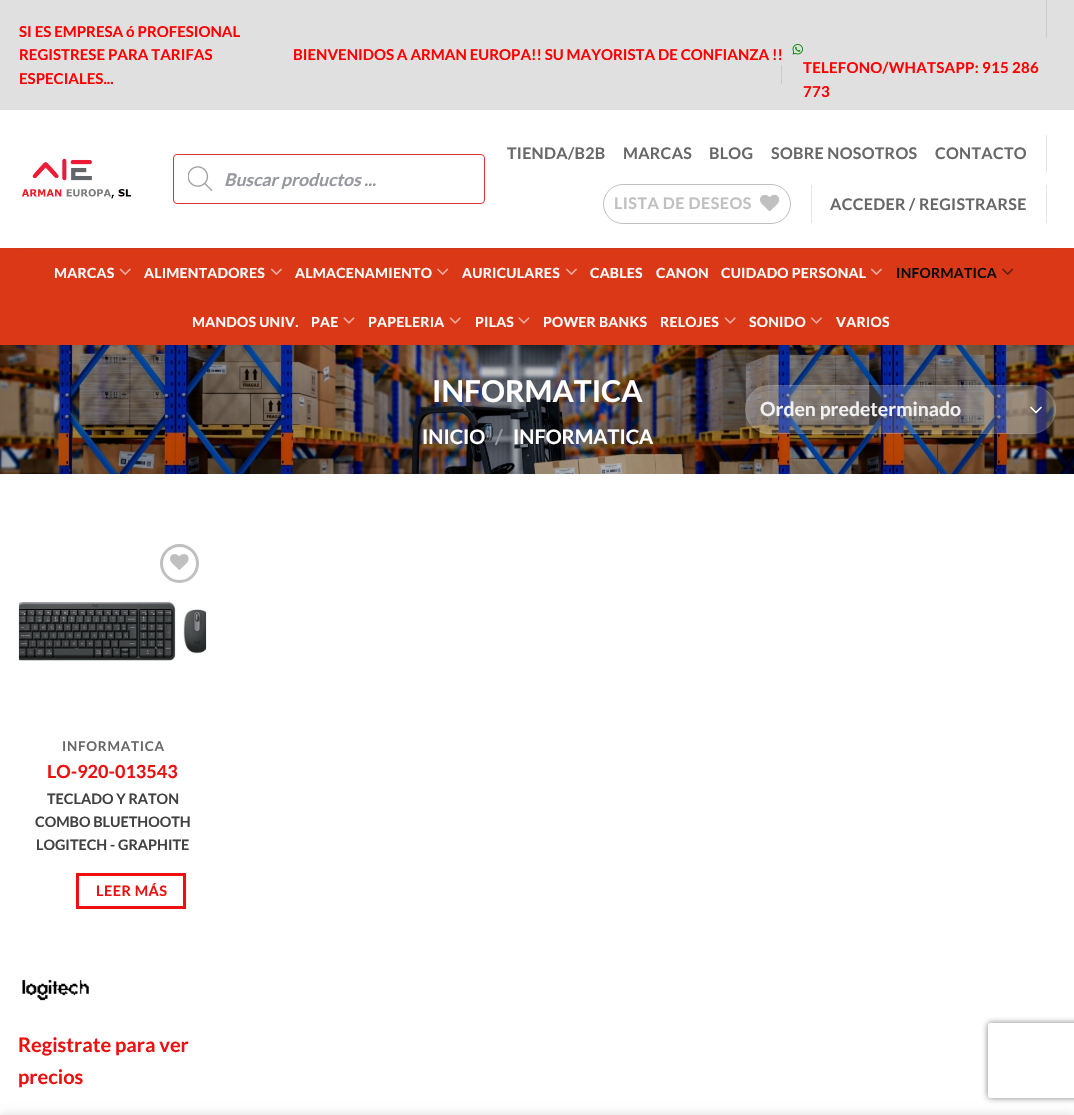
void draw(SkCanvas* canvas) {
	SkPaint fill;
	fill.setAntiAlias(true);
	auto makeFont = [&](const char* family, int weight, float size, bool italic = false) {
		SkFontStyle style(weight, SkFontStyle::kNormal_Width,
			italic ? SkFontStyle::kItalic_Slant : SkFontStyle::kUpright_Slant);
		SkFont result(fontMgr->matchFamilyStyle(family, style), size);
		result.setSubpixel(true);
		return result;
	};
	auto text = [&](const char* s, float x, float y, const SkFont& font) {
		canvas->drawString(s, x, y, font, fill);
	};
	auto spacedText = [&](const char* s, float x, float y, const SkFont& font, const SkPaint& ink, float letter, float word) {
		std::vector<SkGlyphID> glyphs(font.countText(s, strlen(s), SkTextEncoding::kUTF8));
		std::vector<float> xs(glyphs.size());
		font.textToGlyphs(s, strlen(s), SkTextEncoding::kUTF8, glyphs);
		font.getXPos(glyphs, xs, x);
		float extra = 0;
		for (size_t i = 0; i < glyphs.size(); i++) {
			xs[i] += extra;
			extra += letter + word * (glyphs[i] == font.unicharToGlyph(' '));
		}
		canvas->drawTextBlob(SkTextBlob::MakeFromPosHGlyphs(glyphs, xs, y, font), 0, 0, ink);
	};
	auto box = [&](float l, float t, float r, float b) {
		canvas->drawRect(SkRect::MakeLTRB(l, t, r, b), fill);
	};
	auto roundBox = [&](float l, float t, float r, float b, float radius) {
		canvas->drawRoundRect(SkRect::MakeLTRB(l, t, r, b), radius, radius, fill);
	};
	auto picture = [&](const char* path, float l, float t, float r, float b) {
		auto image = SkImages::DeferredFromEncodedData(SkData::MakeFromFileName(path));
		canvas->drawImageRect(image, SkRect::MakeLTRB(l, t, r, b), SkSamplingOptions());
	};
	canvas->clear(0xFFFFFFFF);
	picture("image11.png", 0, 345, 1074, 474);
	canvas->save();
	canvas->clipRect(SkRect::MakeLTRB(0, 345, 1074, 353));
	fill.setColor(0x26000000);
	fill.setMaskFilter(SkMaskFilter::MakeBlur(kNormal_SkBlurStyle, 6));
	canvas->drawRect(SkRect::MakeLTRB(1, 1, 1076, 346), fill);
	fill.setMaskFilter(nullptr);
	canvas->restore();
	fill.setColor(0xFFE0E0E0);
	box(0, 0, 1074, 110);
	fill.setColor(0xFFCACACA);
	box(1046, 0, 1047, 38);
	picture("image0.png", 792, 44, 803, 55);
	box(781, 65, 782, 84);
	picture("image1.png", 21, 158, 132, 199);
	fill.setStyle(SkPaint::kStroke_Style);
	fill.setStrokeWidth(1);
	fill.setColor(0xFFDD3333);
	canvas->drawRoundRect(SkRect::MakeLTRB(173.5f, 154.5f, 484.5f, 203.5f), 3.5f, 3.5f, fill);
	picture("image2.png", 188, 166, 213, 191);
	fill.setStyle(SkPaint::kFill_Style);
	fill.setColor(0xFFE6E6E6);
	box(1046, 135, 1047, 173);
	fill.setStyle(SkPaint::kStroke_Style);
	fill.setColor(0xFFC0C0C0);
	canvas->drawRoundRect(SkRect::MakeLTRB(603.5f, 184.5f, 790.5f, 223.5f), 19.5f, 19.5f, fill);
	picture("image3.png", 760, 194, 780, 212);
	fill.setStyle(SkPaint::kFill_Style);
	fill.setColor(0xFFE6E6E6);
	box(811, 185, 812, 223);
	box(1046, 185, 1047, 223);
	fill.setColor(0xFFDB3818);
	box(0, 248, 1074, 345);
	fill.setColor(0xFFCC391C);
	box(19, 248, 1056, 249);
	picture("image4.png", 119, 268, 131, 275);
	picture("image5.png", 270, 268, 282, 275);
	picture("image6.png", 437, 268, 449, 275);
	picture("image5.png", 565, 268, 577, 275);
	picture("image5.png", 870, 268, 882, 275);
	picture("image7.png", 1002, 268, 1014, 275);
	picture("image8.png", 343, 317, 355, 324);
	picture("image9.png", 449, 317, 461, 324);
	picture("image8.png", 518, 317, 530, 324);
	picture("image9.png", 724, 317, 736, 324);
	picture("image10.png", 810, 317, 822, 324);
	fill.setColor(0x33FFFFFF);
	roundBox(745, 385, 1056, 434, 24.5f);
	fill.setStyle(SkPaint::kStroke_Style);
	fill.setStrokeWidth(1.7f);
	fill.setStrokeCap(SkPaint::kRound_Cap);
	fill.setStrokeJoin(SkPaint::kRound_Join);
	fill.setColor(0xFFFFFFFF);
	canvas->drawPath(SkPathBuilder().moveTo(1031, 407.5f).lineTo(1036, 412.5f).lineTo(1041, 407.5f).detach(), fill);
	fill.setStrokeWidth(1);
	fill.setStrokeCap(SkPaint::kButt_Cap);
	fill.setStrokeJoin(SkPaint::kMiter_Join);
	fill.setColor(0x17FFFFFF);
	canvas->drawRoundRect(SkRect::MakeLTRB(745.5f, 385.5f, 1055.5f, 433.5f), 24, 24, fill);
	fill.setStrokeWidth(3);
	fill.setColor(0xFFC0C0C0);
	canvas->drawCircle(179.5f, 563.5f, 18, fill);
	picture("image12.png", 170, 554, 189, 570);
	picture("image13.png", 18, 601, 207, 661);
	fill.setColor(0xFFEE1010);
	canvas->drawRect(SkRect::MakeLTRB(77.5f, 874.5f, 184.5f, 907.5f), fill);
	picture("image14.png", 22, 979, 89, 1001);
	canvas->save();
	canvas->clipPath(SkPathBuilder(SkPathFillType::kEvenOdd).moveTo(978, 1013).lineTo(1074, 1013).lineTo(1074, 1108).lineTo(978, 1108).close().moveTo(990.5f, 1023).lineTo(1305.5f, 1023).cubicTo(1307, 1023, 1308, 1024, 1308, 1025.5f).lineTo(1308, 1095.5f).cubicTo(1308, 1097, 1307, 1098, 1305.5f, 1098).lineTo(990.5f, 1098).cubicTo(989, 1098, 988, 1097, 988, 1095.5f).lineTo(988, 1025.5f).cubicTo(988, 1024, 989, 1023, 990.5f, 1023).close().detach(), true);
	fill.setStyle(SkPaint::kFill_Style);
	fill.setColor(0xFF808080);
	fill.setMaskFilter(SkMaskFilter::MakeBlur(kNormal_SkBlurStyle, 3));
	canvas->drawRoundRect(SkRect::MakeLTRB(988, 1023, 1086, 1098), 2.5f, 2.5f, fill);
	fill.setMaskFilter(nullptr);
	canvas->restore();
	fill.setColor(0x24000000);
	fill.setMaskFilter(SkMaskFilter::MakeBlur(kNormal_SkBlurStyle, 5.5f));
	canvas->drawRect(SkRect::MakeLTRB(0, 1115, 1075, 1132), fill);
	fill.setMaskFilter(nullptr);
	auto font1 = makeFont("Lato", 700, 15);
	fill.setColor(0xFFFF0000);
	text("SI ES EMPRESA ó PROFESIONAL", 19, 37, font1);
	text("REGISTRESE PARA TARIFAS", 19, 60, font1);
	text("ESPECIALES...", 19, 84, font1);
	text("BIENVENIDOS A ARMAN EUROPA!! SU MAYORISTA DE CONFIANZA !!", 293, 60, font1);
	spacedText("TELEFONO/WHATSAPP: 915 286", 803, 73, font1, fill, 0.25f, 0);
	spacedText("773", 803, 97, font1, fill, 0.25f, 0);
	auto font2 = makeFont("Lato", 700, 17.5f, true);
	fill.setColor(0xFF95989E);
	text("Buscar productos ...", 224, 186, font2);
	auto font3 = makeFont("Lato", 700, 16);
	fill.setColor(0xFF686868);
	spacedText("TIENDA/B2B", 507, 159, font3, fill, 0.3f, 0);
	spacedText("MARCAS", 623, 159, font3, fill, 0.3f, 0);
	spacedText("BLOG", 709, 159, font3, fill, 0.3f, 0);
	spacedText("SOBRE NOSOTROS", 771, 159, font3, fill, 0.3f, 0);
	spacedText("CONTACTO", 935, 159, font3, fill, 0.3f, 0);
	fill.setColor(0xFFC0C0C0);
	spacedText("LISTA DE DESEOS", 614, 209, font3, fill, 0.5f, 0);
	fill.setColor(0xFF686868);
	spacedText("ACCEDER / REGISTRARSE", 830, 210, font3, fill, 0.3f, 0);
	auto font4 = makeFont("Lato", 700, 14);
	fill.setColor(0xFFFFFFFF);
	spacedText("MARCAS", 54, 278, font4, fill, 0.25f, 0);
	spacedText("ALIMENTADORES", 144, 278, font4, fill, 0.25f, 0);
	spacedText("ALMACENAMIENTO", 295, 278, font4, fill, 0.25f, 0);
	spacedText("AURICULARES", 462, 278, font4, fill, 0.25f, 0);
	spacedText("CABLES", 590, 278, font4, fill, 0.25f, 0);
	spacedText("CANON", 656, 278, font4, fill, 0.25f, 0);
	spacedText("CUIDADO PERSONAL", 721, 278, font4, fill, 0.25f, 0);
	fill.setColor(0xFF0A0A0A);
	spacedText("INFORMATICA", 896, 278, font4, fill, 0.25f, 0);
	fill.setColor(0xFFFFFFFF);
	spacedText("MANDOS UNIV.", 192, 327, font4, fill, 0.25f, 0);
	spacedText("PAE", 311, 327, font4, fill, 0.25f, 0);
	spacedText("PAPELERIA", 368, 327, font4, fill, 0.25f, 0);
	spacedText("PILAS", 475, 327, font4, fill, 0.25f, 0);
	spacedText("POWER BANKS", 543, 327, font4, fill, 0.25f, 0);
	spacedText("RELOJES", 660, 327, font4, fill, 0.25f, 0);
	spacedText("SONIDO", 749, 327, font4, fill, 0.25f, 0);
	spacedText("VARIOS", 836, 327, font4, fill, 0.25f, 0);
	auto font5 = makeFont("Lato", 700, 30);
	text("INFORMATICA", 432, 402, font5);
	auto font6 = makeFont("Lato", 700, 20);
	text("INICIO", 422, 444, font6);
	fill.setColor(0xFF95989E);
	text("/", 495, 444, font6);
	fill.setColor(0xFFFFFFFF);
	text("INFORMATICA", 513, 444, font6);
	auto font7 = makeFont("Lato", 700, 19.4f);
	fill.setColor(0xFFF1F1F1);
	text("Orden predeterminado", 760, 416, font7);
	auto font8 = makeFont("Lato", 700, 13.5f);
	fill.setColor(0xFF686868);
	spacedText("INFORMATICA", 62, 751, font8, fill, 0.75f, 0);
	auto font9 = makeFont("Lato", 700, 18);
	fill.setColor(0xFFEE1010);
	text("LO-920-013543", 47, 778, font9);
	auto font10 = makeFont("Lato", 700, 14.4f);
	fill.setColor(0xFF424242);
	text("TECLADO Y RATON", 47, 804, font10);
	text("COMBO BLUETHOOTH", 35, 827, font10);
	text("LOGITECH - GRAPHITE", 36, 850, font10);
	fill.setColor(0xFFEE1010);
	spacedText("LEER MÁS", 96, 896, font10, fill, 0.5f, 0);
	text("Registrate para ver", 18, 1052, font6);
	text("precios", 18, 1084, font6);
}
